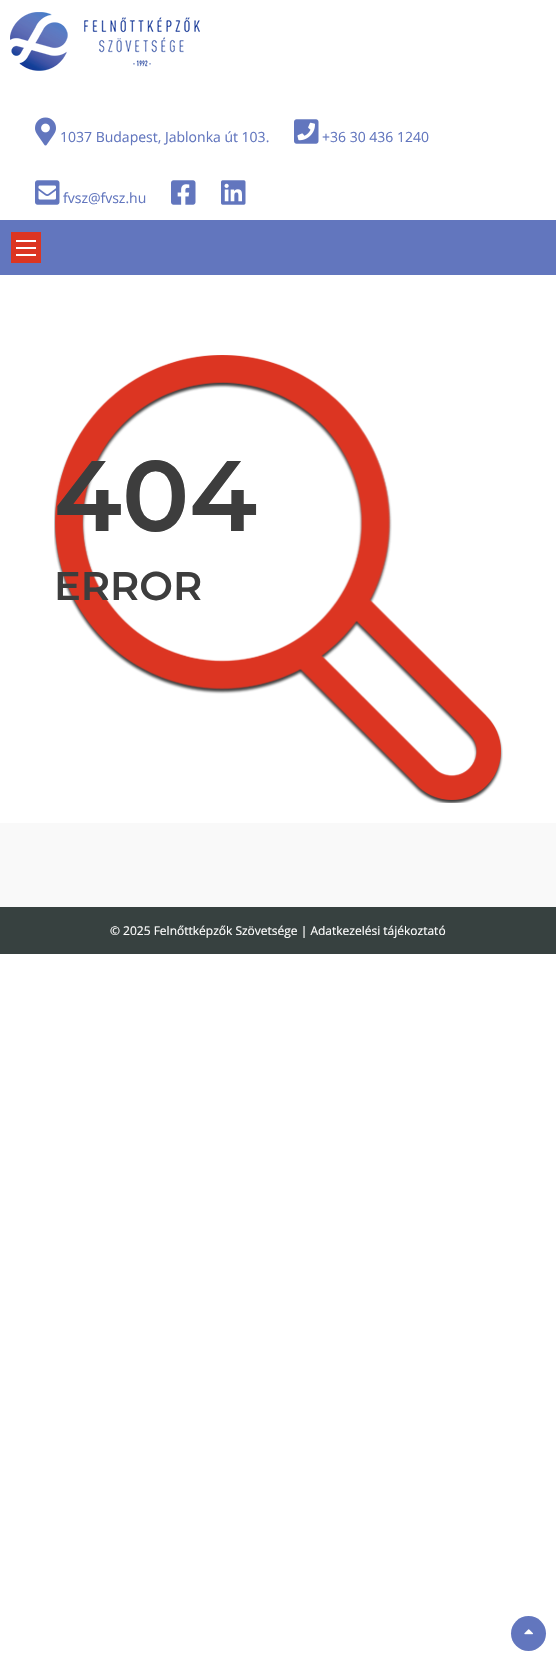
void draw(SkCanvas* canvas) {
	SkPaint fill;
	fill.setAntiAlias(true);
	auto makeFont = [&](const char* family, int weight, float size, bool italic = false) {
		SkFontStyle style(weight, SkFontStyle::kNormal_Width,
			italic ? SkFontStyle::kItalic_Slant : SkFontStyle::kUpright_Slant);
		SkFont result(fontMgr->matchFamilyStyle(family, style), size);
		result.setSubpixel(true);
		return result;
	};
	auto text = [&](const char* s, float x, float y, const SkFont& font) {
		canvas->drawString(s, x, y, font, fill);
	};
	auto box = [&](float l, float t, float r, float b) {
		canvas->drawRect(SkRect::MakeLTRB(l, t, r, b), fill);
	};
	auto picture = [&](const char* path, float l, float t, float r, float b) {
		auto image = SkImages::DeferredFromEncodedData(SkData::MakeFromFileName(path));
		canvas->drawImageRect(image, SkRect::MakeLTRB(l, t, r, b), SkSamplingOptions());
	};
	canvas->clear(0xFFFFFFFF);
	picture("image0.png", 10, 12, 200, 71);
	picture("image1.png", 35, 117, 56, 146);
	picture("image2.png", 294, 119, 319, 144);
	picture("image3.png", 35, 180, 60, 205);
	picture("image4.png", 171, 180, 196, 205);
	picture("image5.png", 221, 180, 246, 205);
	fill.setColor(0xFF6276BE);
	box(0, 220, 556, 275);
	fill.setColor(0xFFDC3522);
	box(11, 232, 41, 263);
	fill.setColor(0xFFFFFFFF);
	box(16, 240, 36, 242);
	box(16, 247, 36, 249);
	box(16, 254, 36, 256);
	picture("image6.png", 54, 355, 503, 803);
	fill.setColor(0xFFF9F9F9);
	box(0, 823, 556, 907);
	fill.setColor(0xFF374140);
	box(0, 907, 556, 954);
	fill.setColor(0xFF6276BE);
	canvas->drawCircle(528.5f, 1633.5f, 17.5f, fill);
	picture("image7.png", 524, 1629, 533, 1635);
	auto font1 = makeFont("Open Sans", 400, 14);
	text("1037 Budapest, Jablonka út 103.", 60, 142, font1);
	text("+36 30 436 1240", 322, 142, font1);
	text("fvsz@fvsz.hu", 63, 203, font1);
	auto font2 = makeFont("Montserrat", 600, 100);
	fill.setColor(0xFF3D3D3D);
	text("404", 54, 531, font2);
	auto font3 = makeFont("Montserrat", 600, 40);
	text("ERROR", 54, 600, font3);
	auto font4 = makeFont("Open Sans", 400, 12);
	fill.setColor(0xFFFFFFFF);
	text("© 2025 Felnőttképzők Szövetsége | Adatkezelési tájékoztató", 110, 935, font4);
}
